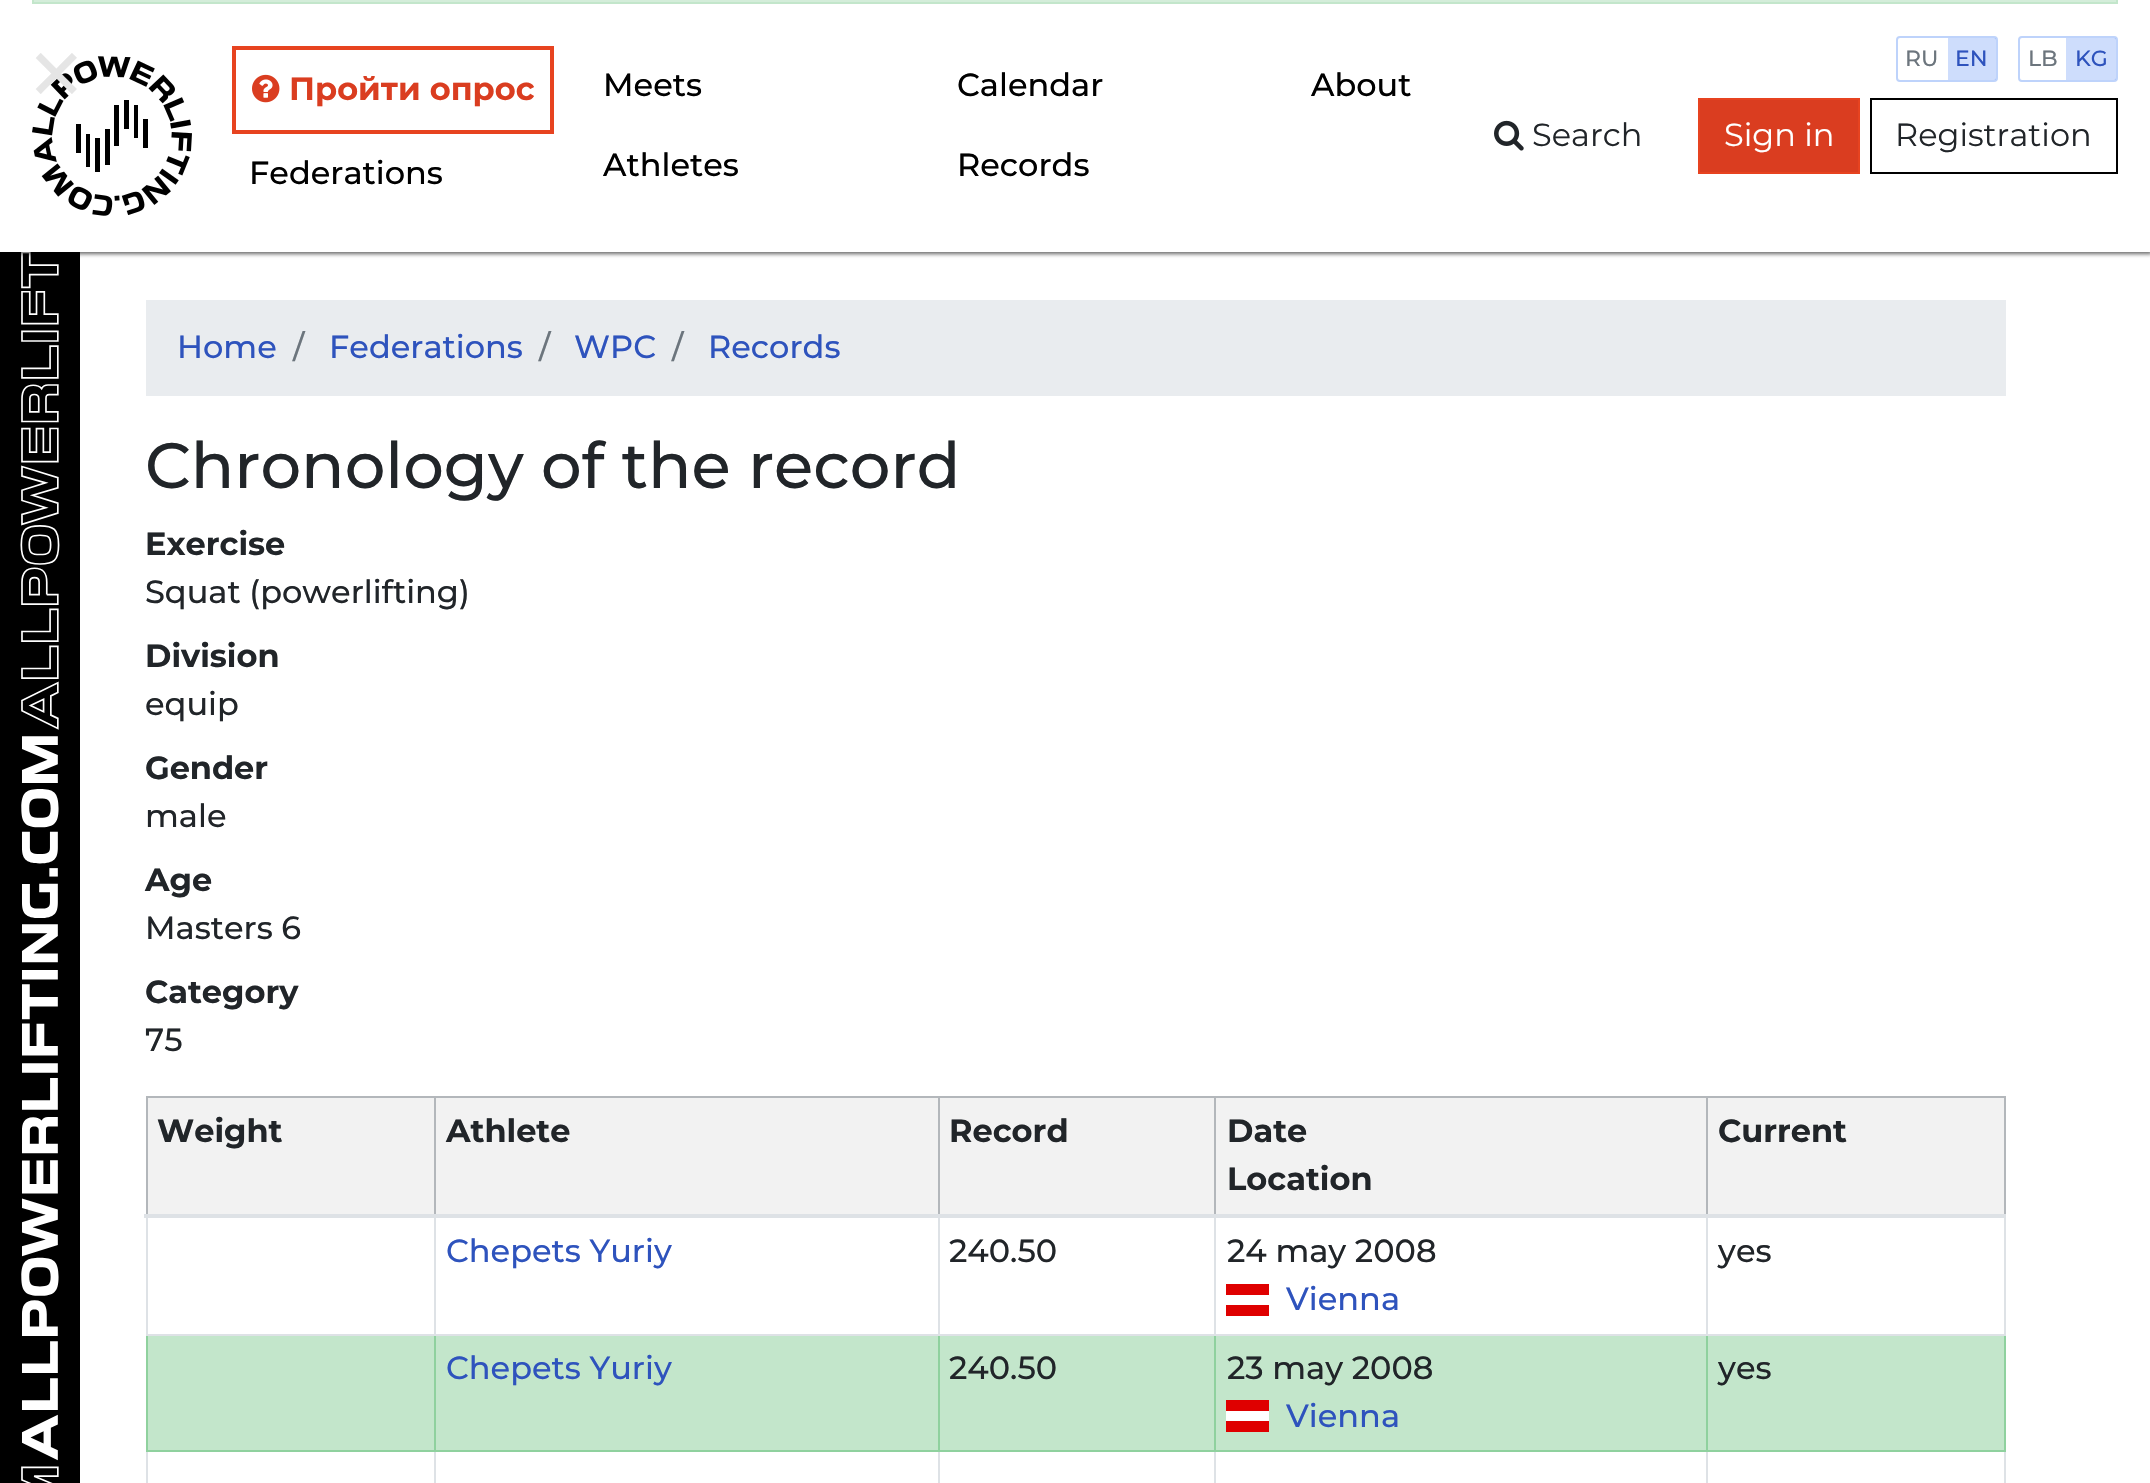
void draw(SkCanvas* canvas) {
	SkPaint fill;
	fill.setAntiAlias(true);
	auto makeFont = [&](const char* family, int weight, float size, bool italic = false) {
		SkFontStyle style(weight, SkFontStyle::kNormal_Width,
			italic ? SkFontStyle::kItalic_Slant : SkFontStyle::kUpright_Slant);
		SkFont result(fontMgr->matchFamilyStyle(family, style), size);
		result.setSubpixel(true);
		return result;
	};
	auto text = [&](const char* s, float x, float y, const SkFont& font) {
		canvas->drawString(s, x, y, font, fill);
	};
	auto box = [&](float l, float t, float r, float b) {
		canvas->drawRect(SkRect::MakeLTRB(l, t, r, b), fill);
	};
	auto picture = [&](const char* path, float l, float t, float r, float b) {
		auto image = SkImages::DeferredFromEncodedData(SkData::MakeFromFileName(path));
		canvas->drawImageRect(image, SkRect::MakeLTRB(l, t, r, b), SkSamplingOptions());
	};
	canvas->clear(0xFFFFFFFF);
	fill.setColor(0xFF000000);
	box(0, 252, 80, 1483);
	picture("image3.png", 20, 252, 60, 1483);
	fill.setColor(0x99000000);
	fill.setMaskFilter(SkMaskFilter::MakeBlur(kNormal_SkBlurStyle, 2));
	canvas->drawRect(SkRect::MakeLTRB(-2, -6, 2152, 254), fill);
	fill.setMaskFilter(nullptr);
	fill.setColor(0xFFFFFFFF);
	box(0, 0, 2150, 252);
	fill.setColor(0xFFD4EDDA);
	canvas->drawRect(SkRect::MakeLTRB(33, -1, 2117, 3), fill);
	fill.setStyle(SkPaint::kStroke_Style);
	fill.setStrokeWidth(2);
	fill.setColor(0xFFC3E6CB);
	canvas->drawRect(SkRect::MakeLTRB(33, -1, 2117, 3), fill);
	picture("image0.png", 32, 56, 192, 216);
	fill.setStrokeWidth(4);
	fill.setColor(0xFFE74320);
	canvas->drawRect(SkRect::MakeLTRB(234, 48, 552, 132), fill);
	picture("image1.png", 252, 74, 280, 103);
	fill.setStrokeWidth(2);
	fill.setColor(0xFFBED3FB);
	canvas->drawRoundRect(SkRect::MakeLTRB(1897, 37, 1997, 81), 3, 3, fill);
	fill.setStyle(SkPaint::kFill_Style);
	fill.setColor(0x4D5C90F5);
	box(1948, 38, 1996, 80);
	fill.setStyle(SkPaint::kStroke_Style);
	fill.setColor(0xFFBED3FB);
	canvas->drawRoundRect(SkRect::MakeLTRB(2019, 37, 2117, 81), 3, 3, fill);
	fill.setStyle(SkPaint::kFill_Style);
	fill.setColor(0x4D5C90F5);
	box(2066, 38, 2116, 80);
	picture("image2.png", 1494, 120, 1524, 151);
	fill.setColor(0xFFDA3D20);
	canvas->drawRect(SkRect::MakeLTRB(1699, 99, 1859, 173), fill);
	fill.setStyle(SkPaint::kStroke_Style);
	fill.setColor(0xFFE74320);
	canvas->drawRect(SkRect::MakeLTRB(1699, 99, 1859, 173), fill);
	fill.setColor(0xFF000000);
	canvas->drawRect(SkRect::MakeLTRB(1871, 99, 2117, 173), fill);
	fill.setStyle(SkPaint::kFill_Style);
	fill.setColor(0xFFE9ECEF);
	box(146, 300, 2006, 396);
	fill.setColor(0xFFDEE2E6);
	box(2004, 1452, 2006, 1483);
	box(146, 1218, 148, 1483);
	fill.setColor(0xFFF2F2F2);
	box(148, 1098, 2004, 1214);
	fill.setColor(0xFFB3B7BB);
	box(1706, 1096, 2006, 1098);
	fill.setColor(0xFF8FD19E);
	box(2004, 1334, 2006, 1452);
	fill.setColor(0xFFDEE2E6);
	box(2004, 1214, 2006, 1336);
	fill.setColor(0xFFC3E6CB);
	box(148, 1336, 2004, 1450);
	fill.setColor(0xFFDEE2E6);
	box(1706, 1450, 1708, 1483);
	fill.setColor(0xFF8FD19E);
	box(1706, 1450, 2006, 1452);
	box(1706, 1334, 1708, 1452);
	fill.setColor(0xFFDEE2E6);
	box(1706, 1334, 2006, 1336);
	box(1706, 1214, 1708, 1336);
	fill.setColor(0xFFB3B7BB);
	box(1706, 1096, 1708, 1216);
	box(1214, 1096, 1708, 1098);
	fill.setColor(0xFFDEE2E6);
	box(1214, 1450, 1216, 1483);
	fill.setColor(0xFF8FD19E);
	box(1214, 1450, 1708, 1452);
	box(1214, 1334, 1216, 1452);
	fill.setColor(0xFFDEE2E6);
	box(1214, 1334, 1708, 1336);
	box(1214, 1214, 1216, 1336);
	fill.setColor(0xFFB3B7BB);
	box(1214, 1096, 1216, 1216);
	box(938, 1096, 1216, 1098);
	fill.setColor(0xFFDEE2E6);
	box(938, 1450, 940, 1483);
	fill.setColor(0xFF8FD19E);
	box(938, 1450, 1216, 1452);
	box(938, 1334, 940, 1452);
	fill.setColor(0xFFDEE2E6);
	box(938, 1334, 1216, 1336);
	box(938, 1214, 940, 1336);
	fill.setColor(0xFFB3B7BB);
	box(938, 1096, 940, 1216);
	box(434, 1096, 940, 1098);
	fill.setColor(0xFFDEE2E6);
	box(434, 1450, 436, 1483);
	fill.setColor(0xFF8FD19E);
	box(434, 1450, 940, 1452);
	box(434, 1334, 436, 1452);
	fill.setColor(0xFFDEE2E6);
	box(434, 1334, 940, 1336);
	box(434, 1214, 436, 1336);
	fill.setColor(0xFFB3B7BB);
	box(434, 1096, 436, 1216);
	box(146, 1096, 436, 1098);
	box(146, 1096, 148, 1216);
	box(2004, 1096, 2006, 1216);
	fill.setColor(0xFFDEE2E6);
	box(144, 1214, 2006, 1218);
	fill.setColor(0xFFDF0000);
	canvas->drawPath(SkPathBuilder(SkPathFillType::kEvenOdd).moveTo(1269, 1316).lineTo(1226, 1316).lineTo(1226, 1305).lineTo(1269, 1305).close().moveTo(1269, 1295).lineTo(1226, 1295).lineTo(1226, 1284).lineTo(1269, 1284).close().detach(), fill);
	fill.setColor(0xFF8FD19E);
	box(146, 1450, 436, 1452);
	box(146, 1334, 148, 1452);
	fill.setColor(0xFFDEE2E6);
	box(146, 1334, 436, 1336);
	fill.setColor(0xFFFFFFFF);
	box(1226, 1411, 1269, 1421);
	fill.setColor(0xFFDF0000);
	canvas->drawPath(SkPathBuilder(SkPathFillType::kEvenOdd).moveTo(1269, 1432).lineTo(1226, 1432).lineTo(1226, 1421).lineTo(1269, 1421).close().moveTo(1269, 1411).lineTo(1226, 1411).lineTo(1226, 1400).lineTo(1269, 1400).close().detach(), fill);
	auto font1 = makeFont("DejaVu Sans", 400, 70);
	fill.setColor(0xFFE5E5E5);
	text("✕", 27, 99, font1);
	auto font2 = makeFont("Montserrat", 700, 32);
	fill.setColor(0xFFDA3D20);
	text("Пройти опрос", 289, 100, font2);
	auto font3 = makeFont("Montserrat", 500, 32);
	fill.setColor(0xFF000000);
	text("Meets", 603, 96, font3);
	text("Calendar", 957, 96, font3);
	text("About", 1311, 96, font3);
	text("Federations", 249, 184, font3);
	text("Athletes", 603, 176, font3);
	text("Records", 957, 176, font3);
	auto font4 = makeFont("Montserrat", 500, 22);
	fill.setColor(0xFF6C757D);
	text("RU", 1905, 66, font4);
	fill.setColor(0xFF2E53BD);
	text("EN", 1955, 66, font4);
	fill.setColor(0xFF6C757D);
	text("LB", 2028, 66, font4);
	fill.setColor(0xFF2E53BD);
	text("KG", 2075, 66, font4);
	auto font5 = makeFont("Montserrat", 400, 32);
	fill.setColor(0xFF212529);
	text("Search", 1532, 146, font5);
	fill.setColor(0xFFFFFFFF);
	text("Sign in", 1724, 146, font5);
	fill.setColor(0xFF212529);
	text("Registration", 1895, 146, font5);
	fill.setColor(0xFF2E53BD);
	text("Home", 177, 358, font3);
	fill.setColor(0xFF6C757D);
	text("/", 293, 358, font3);
	fill.setColor(0xFF2E53BD);
	text("Federations", 329, 358, font3);
	fill.setColor(0xFF6C757D);
	text("/", 539, 358, font3);
	fill.setColor(0xFF2E53BD);
	text("WPC", 574, 358, font3);
	fill.setColor(0xFF6C757D);
	text("/", 672, 358, font3);
	fill.setColor(0xFF2E53BD);
	text("Records", 708, 358, font3);
	auto font6 = makeFont("Montserrat", 500, 64);
	fill.setColor(0xFF212529);
	text("Chronology of the record", 145, 488, font6);
	text("Exercise", 145, 555, font2);
	text("Squat (powerlifting)", 145, 603, font3);
	text("Division", 145, 667, font2);
	text("equip", 145, 715, font3);
	text("Gender", 145, 779, font2);
	text("male", 145, 827, font3);
	text("Age", 145, 891, font2);
	text("Masters 6", 145, 939, font3);
	text("Category", 145, 1003, font2);
	text("75", 145, 1051, font3);
	text("Weight", 157, 1142, font2);
	text("Athlete", 446, 1142, font2);
	text("Record", 949, 1142, font2);
	text("Date", 1227, 1142, font2);
	text("Location", 1227, 1190, font2);
	text("Current", 1718, 1142, font2);
	fill.setColor(0xFF2E53BD);
	text("Chepets Yuriy", 446, 1262, font3);
	fill.setColor(0xFF212529);
	text("240.50", 949, 1262, font3);
	text("24 may 2008", 1227, 1262, font3);
	fill.setColor(0xFF2E53BD);
	text("Vienna", 1286, 1310, font3);
	fill.setColor(0xFF212529);
	text("yes", 1718, 1262, font3);
	fill.setColor(0xFF2E53BD);
	text("Chepets Yuriy", 446, 1379, font3);
	fill.setColor(0xFF212529);
	text("240.50", 949, 1379, font3);
	text("23 may 2008", 1227, 1379, font3);
	fill.setColor(0xFF2E53BD);
	text("Vienna", 1286, 1427, font3);
	fill.setColor(0xFF212529);
	text("yes", 1718, 1379, font3);
}
